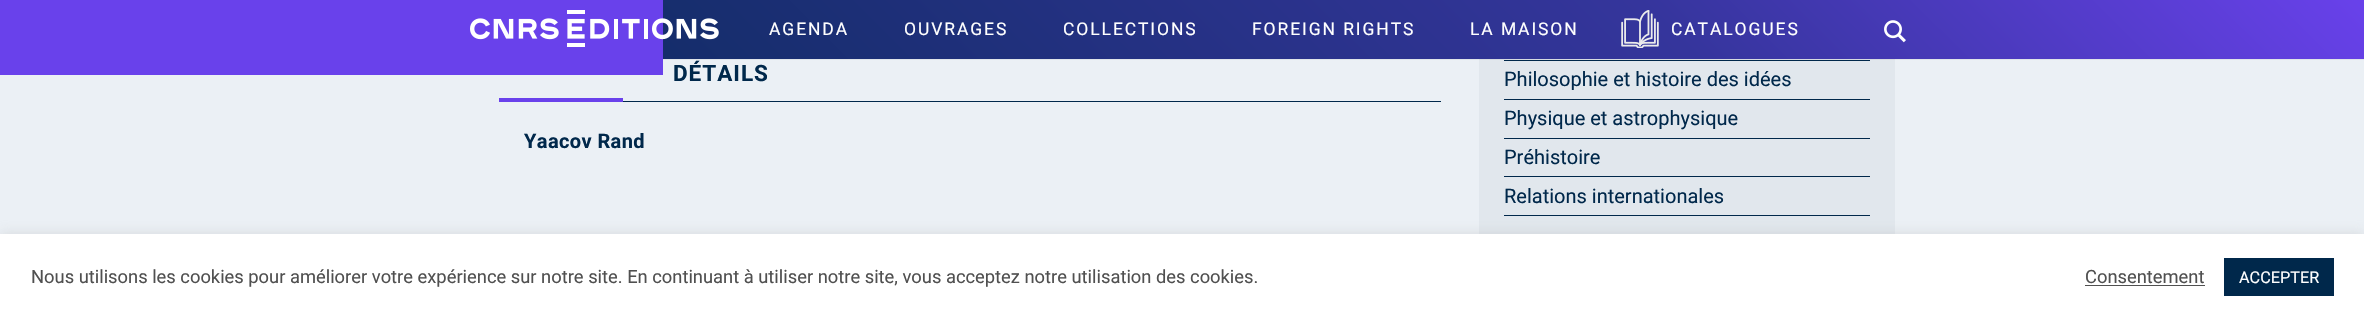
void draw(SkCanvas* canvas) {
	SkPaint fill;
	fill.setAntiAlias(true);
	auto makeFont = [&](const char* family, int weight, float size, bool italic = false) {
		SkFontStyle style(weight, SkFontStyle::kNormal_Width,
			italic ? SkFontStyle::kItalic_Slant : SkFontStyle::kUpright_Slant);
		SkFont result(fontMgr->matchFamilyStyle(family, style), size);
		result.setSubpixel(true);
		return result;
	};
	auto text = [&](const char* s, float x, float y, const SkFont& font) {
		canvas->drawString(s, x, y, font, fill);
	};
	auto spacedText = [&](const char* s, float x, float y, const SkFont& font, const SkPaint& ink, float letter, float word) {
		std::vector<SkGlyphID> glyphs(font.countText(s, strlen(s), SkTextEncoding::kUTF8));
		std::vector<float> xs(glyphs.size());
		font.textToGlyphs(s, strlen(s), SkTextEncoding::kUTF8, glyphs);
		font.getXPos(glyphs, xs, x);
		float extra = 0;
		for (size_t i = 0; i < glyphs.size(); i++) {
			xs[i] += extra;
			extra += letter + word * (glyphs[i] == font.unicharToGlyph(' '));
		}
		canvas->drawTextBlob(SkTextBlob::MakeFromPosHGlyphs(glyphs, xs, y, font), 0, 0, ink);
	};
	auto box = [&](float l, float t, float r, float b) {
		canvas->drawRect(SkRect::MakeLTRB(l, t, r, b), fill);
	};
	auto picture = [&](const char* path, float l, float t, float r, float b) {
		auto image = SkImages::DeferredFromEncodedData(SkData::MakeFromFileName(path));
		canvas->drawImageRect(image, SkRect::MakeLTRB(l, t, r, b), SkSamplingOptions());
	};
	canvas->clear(0xFFEBF0F5);
	fill.setColor(0xFFDFE4E9);
	box(663, 59, 2364, 60);
	{
		const SkColor colors[] = {0xFF00284B, 0xFF35359C, 0xFF6941EB};
		const float stops[] = {0, 0.7f, 1};
		const SkPoint ends[] = {{577, 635}, {1788, -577}};
		fill.setShader(SkGradientShader::MakeLinear(ends, colors, stops, 3, SkTileMode::kClamp));
		fill.setAlpha(255);
	}
	box(663, 0, 2364, 59);
	fill.setShader(nullptr);
	fill.setColor(0xFF6941EB);
	box(0, 0, 663, 75);
	picture("image0.png", 470, 10, 719, 47);
	picture("image1.png", 1621, 10, 1659, 48);
	picture("image2.png", 1884, 20, 1906, 43);
	fill.setColor(0xFF00284B);
	box(623, 101, 1441, 102);
	fill.setColor(0xFF6941EB);
	box(499, 98, 623, 102);
	fill.setColor(0xFFE1E7ED);
	box(1479, 60, 1895, 234);
	fill.setColor(0xFFD6DBE1);
	box(1479, 59, 1895, 60);
	fill.setColor(0xFF00284B);
	box(1504, 60, 1870, 61);
	box(1504, 99, 1870, 100);
	box(1504, 138, 1870, 139);
	box(1504, 176, 1870, 177);
	box(1504, 215, 1870, 216);
	fill.setColor(0x4DACABAB);
	fill.setMaskFilter(SkMaskFilter::MakeBlur(kNormal_SkBlurStyle, 6));
	canvas->drawRect(SkRect::MakeLTRB(0, 233, 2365, 319), fill);
	fill.setMaskFilter(nullptr);
	fill.setColor(0xFFFFFFFF);
	box(0, 234, 2364, 319);
	fill.setColor(0xFF505050);
	box(2085, 285, 2205, 286);
	fill.setColor(0xFF00284B);
	box(2224, 258, 2334, 296);
	auto font1 = makeFont("Roboto", 400, 17.5f);
	fill.setColor(0xFFFFFFFF);
	spacedText("AGENDA", 769, 35, font1, fill, 1.9f, 0);
	spacedText("OUVRAGES", 904, 35, font1, fill, 1.9f, 0);
	spacedText("COLLECTIONS", 1063, 35, font1, fill, 1.9f, 0);
	spacedText("FOREIGN RIGHTS", 1252, 35, font1, fill, 1.9f, 0);
	spacedText("LA MAISON", 1470, 35, font1, fill, 1.9f, 0);
	spacedText("CATALOGUES", 1671, 35, font1, fill, 1.9f, 0);
	auto font2 = makeFont("Roboto", 700, 22.5f);
	fill.setColor(0xFF00284B);
	spacedText("DÉTAILS", 673, 81, font2, fill, 1, 0);
	auto font3 = makeFont("Roboto", 700, 20);
	spacedText("Yaacov Rand", 524, 148, font3, fill, 0.4f, 0);
	auto font4 = makeFont("Roboto", 400, 20);
	text("Philosophie et histoire des idées", 1504, 86, font4);
	text("Physique et astrophysique", 1504, 125, font4);
	text("Préhistoire", 1504, 164, font4);
	text("Relations internationales", 1504, 203, font4);
	auto font5 = makeFont("Roboto", 400, 18.33f);
	fill.setColor(0xFF505050);
	text("Nous utilisons les cookies pour améliorer votre expérience sur notre site. En continuant à utiliser notre site, vous acceptez notre utilisation des cookies.", 31, 283, font5);
	text("Consentement", 2085, 283, font5);
	auto font6 = makeFont("Roboto", 400, 16.25f);
	fill.setColor(0xFFFFFFFF);
	text("ACCEPTER", 2239, 283, font6);
}
